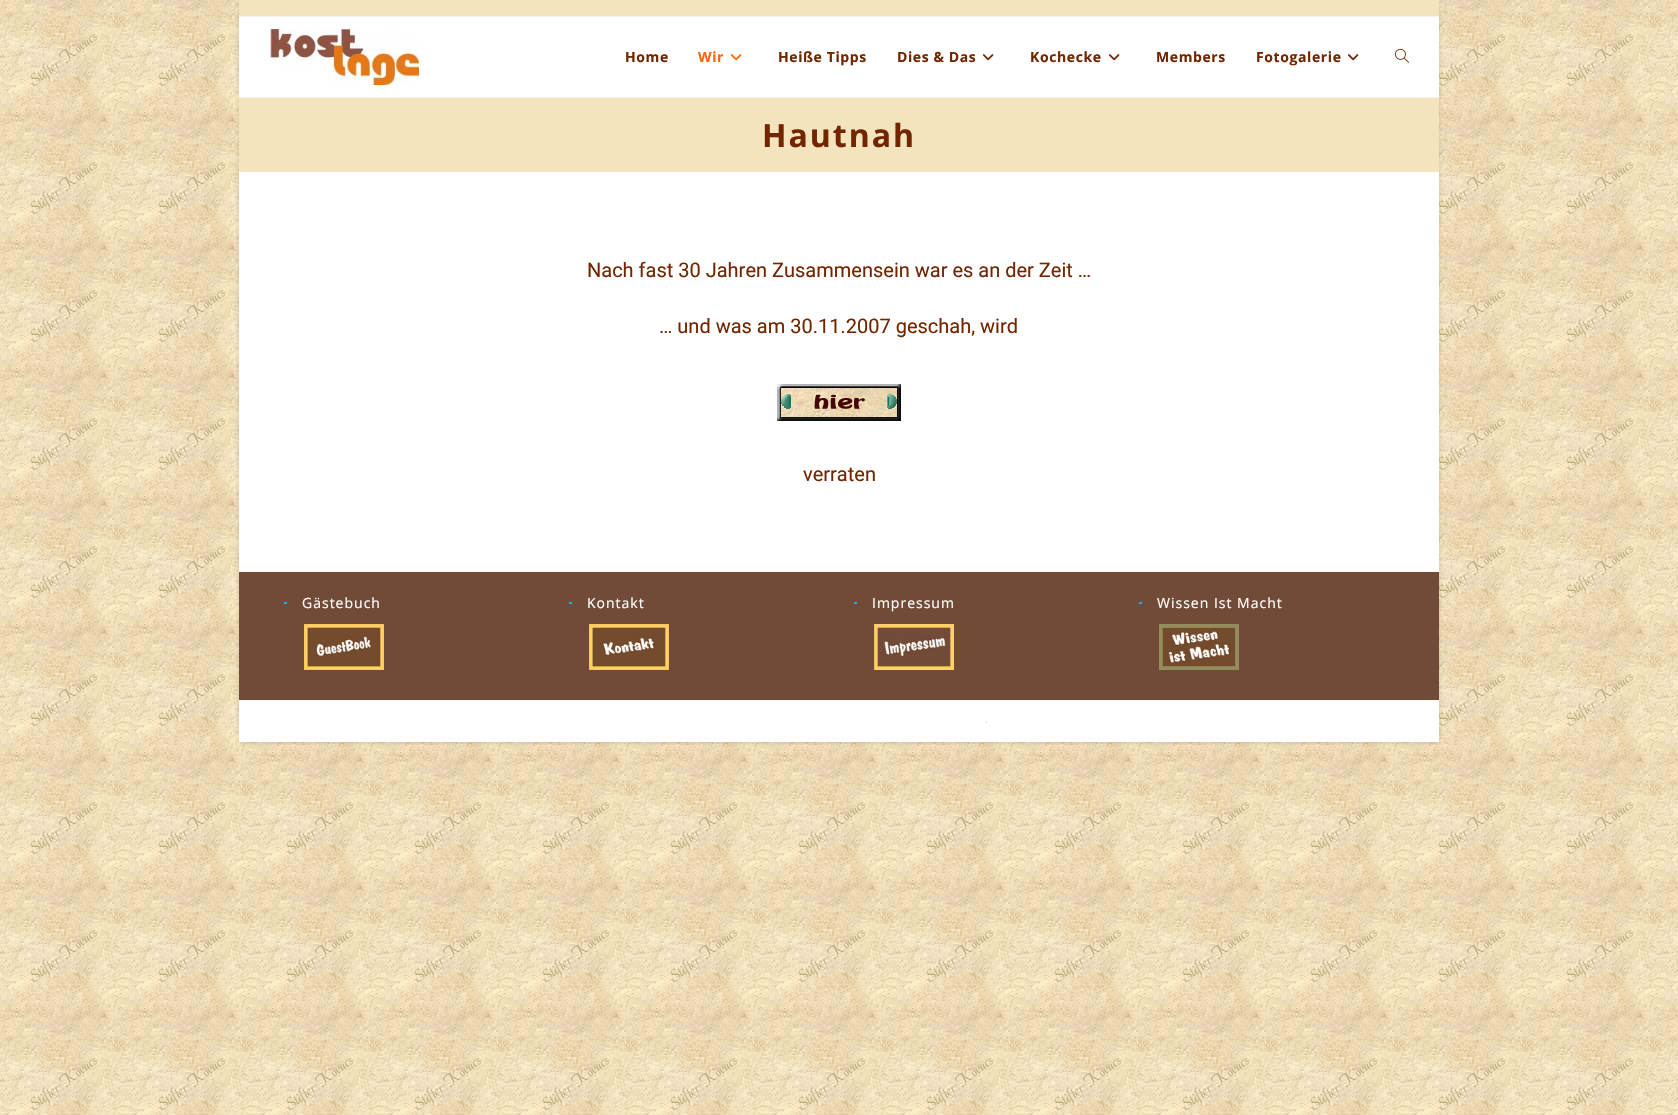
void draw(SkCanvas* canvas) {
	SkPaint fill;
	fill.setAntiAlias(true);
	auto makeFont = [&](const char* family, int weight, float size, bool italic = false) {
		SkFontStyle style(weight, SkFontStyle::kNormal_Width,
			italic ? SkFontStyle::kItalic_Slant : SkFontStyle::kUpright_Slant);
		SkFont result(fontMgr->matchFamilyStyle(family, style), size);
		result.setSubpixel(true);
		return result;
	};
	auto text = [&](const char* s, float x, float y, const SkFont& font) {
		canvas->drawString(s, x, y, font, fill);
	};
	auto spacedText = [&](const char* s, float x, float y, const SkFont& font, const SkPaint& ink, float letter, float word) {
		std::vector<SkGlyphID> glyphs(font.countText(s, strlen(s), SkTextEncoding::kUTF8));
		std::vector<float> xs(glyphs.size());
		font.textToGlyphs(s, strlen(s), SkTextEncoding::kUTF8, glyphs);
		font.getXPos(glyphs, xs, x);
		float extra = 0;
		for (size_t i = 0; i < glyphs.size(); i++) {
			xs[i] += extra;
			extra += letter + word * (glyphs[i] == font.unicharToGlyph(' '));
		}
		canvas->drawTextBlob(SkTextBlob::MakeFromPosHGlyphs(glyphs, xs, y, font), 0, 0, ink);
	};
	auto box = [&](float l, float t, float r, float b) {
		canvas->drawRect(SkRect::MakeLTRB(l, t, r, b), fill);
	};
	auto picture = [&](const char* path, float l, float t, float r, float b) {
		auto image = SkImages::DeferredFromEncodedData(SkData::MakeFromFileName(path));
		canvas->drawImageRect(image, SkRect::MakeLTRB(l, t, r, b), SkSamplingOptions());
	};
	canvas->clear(0xFFFFFFFF);
	picture("image0.png", 0, 0, 1678, 1115);
	fill.setColor(0x26000000);
	fill.setMaskFilter(SkMaskFilter::MakeBlur(kNormal_SkBlurStyle, 2));
	canvas->drawRect(SkRect::MakeLTRB(239, 1, 1439, 743), fill);
	fill.setMaskFilter(nullptr);
	fill.setColor(0xFFFFFFFF);
	box(239, 17, 1439, 742);
	fill.setColor(0xFFF4E4BE);
	box(239, 0, 1439, 16);
	fill.setColor(0xFFF1F1F1);
	box(239, 16, 1439, 17);
	box(239, 97, 1439, 98);
	picture("image1.png", 269, 29, 419, 85);
	picture("image2.png", 731, 54, 742, 61);
	picture("image3.png", 983, 54, 994, 61);
	picture("image3.png", 1109, 54, 1120, 61);
	picture("image3.png", 1348, 54, 1359, 61);
	picture("image4.png", 1395, 48, 1409, 63);
	fill.setColor(0xFFF4E4BE);
	box(239, 98, 1439, 172);
	picture("image5.png", 777, 384, 901, 421);
	fill.setColor(0xFF724B38);
	box(239, 572, 1439, 700);
	fill.setColor(0xFF13AFF0);
	box(284, 602, 287, 604);
	picture("image6.png", 304, 624, 384, 670);
	box(569, 602, 572, 604);
	picture("image7.png", 589, 624, 669, 670);
	box(854, 602, 857, 604);
	picture("image8.png", 874, 624, 954, 670);
	box(1139, 602, 1142, 604);
	picture("image9.png", 1159, 624, 1239, 670);
	fill.setColor(0xFFD3C17E);
	box(986, 722, 987, 723);
	auto font1 = makeFont("Open Sans", 700, 14);
	fill.setColor(0xFF722600);
	spacedText("Home", 625, 62, font1, fill, 0.6f, 0);
	fill.setColor(0xFFFF6600);
	spacedText("Wir", 698, 62, font1, fill, 0.6f, 0);
	fill.setColor(0xFF722600);
	spacedText("Heiße Tipps", 778, 62, font1, fill, 0.6f, 0);
	spacedText("Dies & Das", 897, 62, font1, fill, 0.6f, 0);
	spacedText("Kochecke", 1030, 62, font1, fill, 0.6f, 0);
	spacedText("Members", 1156, 62, font1, fill, 0.6f, 0);
	spacedText("Fotogalerie", 1256, 62, font1, fill, 0.6f, 0);
	auto font2 = makeFont("Open Sans", 700, 32);
	spacedText("Hautnah", 762, 147, font2, fill, 2, 0);
	auto font3 = makeFont("Roboto", 400, 20);
	text("Nach fast 30 Jahren Zusammensein war es an der Zeit …", 587, 277, font3);
	text("… und was am 30.11.2007 geschah, wird", 659, 333, font3);
	text("verraten", 803, 481, font3);
	auto font4 = makeFont("Open Sans", 400, 14);
	fill.setColor(0xFFFFFFFF);
	spacedText("Gästebuch", 302, 608, font4, fill, 1, 0);
	spacedText("Kontakt", 587, 608, font4, fill, 1, 0);
	spacedText("Impressum", 872, 608, font4, fill, 1, 0);
	spacedText("Wissen Ist Macht", 1157, 608, font4, fill, 1, 0);
}
